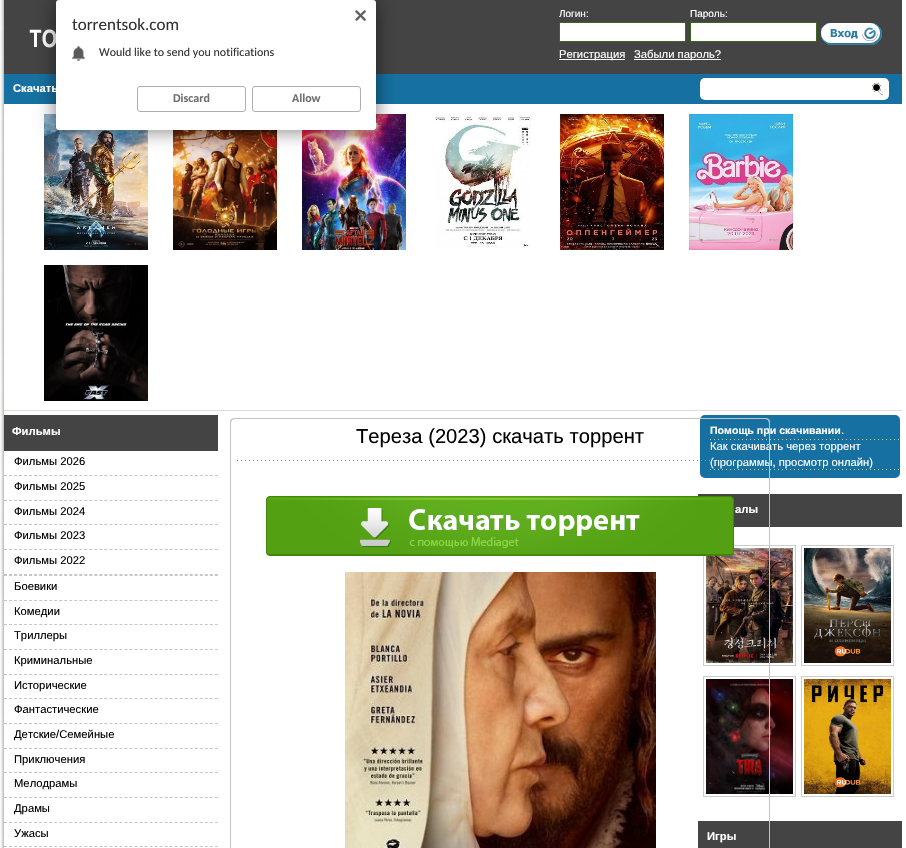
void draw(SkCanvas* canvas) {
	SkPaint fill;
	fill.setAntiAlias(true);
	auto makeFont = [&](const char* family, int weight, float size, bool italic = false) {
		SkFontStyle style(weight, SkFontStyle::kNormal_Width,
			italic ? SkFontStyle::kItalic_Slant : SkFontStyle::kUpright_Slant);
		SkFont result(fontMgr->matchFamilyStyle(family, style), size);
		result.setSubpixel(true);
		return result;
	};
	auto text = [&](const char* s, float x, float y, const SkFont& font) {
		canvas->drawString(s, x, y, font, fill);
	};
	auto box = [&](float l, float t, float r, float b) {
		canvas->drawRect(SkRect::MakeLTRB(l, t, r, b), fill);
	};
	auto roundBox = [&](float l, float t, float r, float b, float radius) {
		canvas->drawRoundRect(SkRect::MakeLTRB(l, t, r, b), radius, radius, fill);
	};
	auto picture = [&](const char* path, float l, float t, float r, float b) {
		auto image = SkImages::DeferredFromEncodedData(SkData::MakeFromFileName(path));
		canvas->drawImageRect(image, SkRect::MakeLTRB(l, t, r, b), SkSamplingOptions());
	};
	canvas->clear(0xFFFFFFFF);
	picture("image0.png", 0, 0, 4, 848);
	fill.setColor(0xFF454444);
	box(4, 0, 902, 74);
	picture("image1.png", 29, 29, 56, 48);
	fill.setColor(0xFFFFFFFF);
	canvas->drawRect(SkRect::MakeLTRB(559.5f, 22.5f, 685.5f, 41.5f), fill);
	fill.setStyle(SkPaint::kStroke_Style);
	fill.setStrokeWidth(1);
	fill.setColor(0xFF3E651A);
	canvas->drawRect(SkRect::MakeLTRB(559.5f, 22.5f, 685.5f, 41.5f), fill);
	fill.setStyle(SkPaint::kFill_Style);
	fill.setColor(0xFFFFFFFF);
	canvas->drawRect(SkRect::MakeLTRB(690.5f, 22.5f, 816.5f, 41.5f), fill);
	fill.setStyle(SkPaint::kStroke_Style);
	fill.setColor(0xFF3E651A);
	canvas->drawRect(SkRect::MakeLTRB(690.5f, 22.5f, 816.5f, 41.5f), fill);
	picture("image2.png", 821, 23, 882, 45);
	fill.setStyle(SkPaint::kFill_Style);
	fill.setColor(0xFFFFFFFF);
	box(559, 59, 625, 60);
	box(634, 59, 721, 60);
	fill.setColor(0xFF1671A2);
	box(4, 74, 902, 104);
	fill.setColor(0xFFFFFFFF);
	roundBox(700, 78, 889, 100, 5);
	picture("image3.png", 872, 83, 883, 95);
	fill.setColor(0xFFE1DDD6);
	box(4, 410, 902, 411);
	picture("image4.png", 44, 114, 148, 250);
	picture("image5.png", 173, 130, 277, 250);
	picture("image6.png", 302, 114, 406, 250);
	picture("image7.png", 435, 114, 531, 248);
	picture("image8.png", 560, 114, 664, 250);
	picture("image9.png", 689, 114, 793, 250);
	picture("image10.png", 44, 265, 148, 401);
	fill.setColor(0xFF454444);
	box(4, 415, 218, 451);
	fill.setStyle(SkPaint::kStroke_Style);
	fill.setColor(0xFFC8C5C5);
	fill.setPathEffect(SkDashPathEffect::Make({{3, 2.02f}}, 0));
	canvas->drawPath(SkPathBuilder().moveTo(4, 475.5f).lineTo(218, 475.5f).detach(), fill);
	fill.setPathEffect(nullptr);
	fill.setPathEffect(SkDashPathEffect::Make({{3, 2.02f}}, 0));
	canvas->drawPath(SkPathBuilder().moveTo(4, 500.5f).lineTo(218, 500.5f).detach(), fill);
	fill.setPathEffect(nullptr);
	fill.setPathEffect(SkDashPathEffect::Make({{3, 2.02f}}, 0));
	canvas->drawPath(SkPathBuilder().moveTo(4, 524.5f).lineTo(218, 524.5f).detach(), fill);
	fill.setPathEffect(nullptr);
	fill.setPathEffect(SkDashPathEffect::Make({{3, 2.02f}}, 0));
	canvas->drawPath(SkPathBuilder().moveTo(4, 549.5f).lineTo(218, 549.5f).detach(), fill);
	fill.setPathEffect(nullptr);
	fill.setPathEffect(SkDashPathEffect::Make({{3, 2.02f}}, 0));
	canvas->drawPath(SkPathBuilder().moveTo(4, 574.5f).lineTo(218, 574.5f).detach(), fill);
	fill.setPathEffect(nullptr);
	fill.setPathEffect(SkDashPathEffect::Make({{3, 2.02f}}, 0));
	canvas->drawPath(SkPathBuilder().moveTo(4, 575.5f).lineTo(218, 575.5f).detach(), fill);
	fill.setPathEffect(nullptr);
	fill.setPathEffect(SkDashPathEffect::Make({{3, 2.02f}}, 0));
	canvas->drawPath(SkPathBuilder().moveTo(4, 600.5f).lineTo(218, 600.5f).detach(), fill);
	fill.setPathEffect(nullptr);
	fill.setPathEffect(SkDashPathEffect::Make({{3, 2.02f}}, 0));
	canvas->drawPath(SkPathBuilder().moveTo(4, 624.5f).lineTo(218, 624.5f).detach(), fill);
	fill.setPathEffect(nullptr);
	fill.setPathEffect(SkDashPathEffect::Make({{3, 2.02f}}, 0));
	canvas->drawPath(SkPathBuilder().moveTo(4, 649.5f).lineTo(218, 649.5f).detach(), fill);
	fill.setPathEffect(nullptr);
	fill.setPathEffect(SkDashPathEffect::Make({{3, 2.02f}}, 0));
	canvas->drawPath(SkPathBuilder().moveTo(4, 674.5f).lineTo(218, 674.5f).detach(), fill);
	fill.setPathEffect(nullptr);
	fill.setPathEffect(SkDashPathEffect::Make({{3, 2.02f}}, 0));
	canvas->drawPath(SkPathBuilder().moveTo(4, 698.5f).lineTo(218, 698.5f).detach(), fill);
	fill.setPathEffect(nullptr);
	fill.setPathEffect(SkDashPathEffect::Make({{3, 2.02f}}, 0));
	canvas->drawPath(SkPathBuilder().moveTo(4, 723.5f).lineTo(218, 723.5f).detach(), fill);
	fill.setPathEffect(nullptr);
	fill.setPathEffect(SkDashPathEffect::Make({{3, 2.02f}}, 0));
	canvas->drawPath(SkPathBuilder().moveTo(4, 748.5f).lineTo(218, 748.5f).detach(), fill);
	fill.setPathEffect(nullptr);
	fill.setPathEffect(SkDashPathEffect::Make({{3, 2.02f}}, 0));
	canvas->drawPath(SkPathBuilder().moveTo(4, 772.5f).lineTo(218, 772.5f).detach(), fill);
	fill.setPathEffect(nullptr);
	fill.setPathEffect(SkDashPathEffect::Make({{3, 2.02f}}, 0));
	canvas->drawPath(SkPathBuilder().moveTo(4, 797.5f).lineTo(218, 797.5f).detach(), fill);
	fill.setPathEffect(nullptr);
	fill.setPathEffect(SkDashPathEffect::Make({{3, 2.02f}}, 0));
	canvas->drawPath(SkPathBuilder().moveTo(4, 822.5f).lineTo(218, 822.5f).detach(), fill);
	fill.setPathEffect(nullptr);
	fill.setPathEffect(SkDashPathEffect::Make({{3, 2.02f}}, 0));
	canvas->drawPath(SkPathBuilder().moveTo(4, 846.5f).lineTo(218, 846.5f).detach(), fill);
	fill.setPathEffect(nullptr);
	fill.setStyle(SkPaint::kFill_Style);
	fill.setColor(0xFF1671A2);
	roundBox(700, 415, 900, 478, 5);
	fill.setColor(0xFFC3C3C3);
	canvas->drawPath(SkPathBuilder().moveTo(235, 418).cubicTo(234, 418, 232, 418, 231, 419).lineTo(232, 420).lineTo(235, 419).lineTo(765, 419).lineTo(768, 420).lineTo(769, 419).cubicTo(768, 418, 766, 418, 765, 418).close().detach(), fill);
	canvas->drawPath(SkPathBuilder().moveTo(230, 423).lineTo(230, 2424).lineTo(231, 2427).lineTo(232, 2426).lineTo(231, 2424).lineTo(231, 423).lineTo(232, 420).lineTo(231, 419).cubicTo(230, 420, 230, 422, 230, 423).close().detach(), fill);
	fill.setColor(0xFF454444);
	box(698, 494, 902, 527);
	fill.setStyle(SkPaint::kStroke_Style);
	fill.setColor(0xFFCCCCCC);
	canvas->drawRect(SkRect::MakeLTRB(703.5f, 545.5f, 795.5f, 665.5f), fill);
	picture("image15.png", 706, 548, 793, 663);
	picture("image12.png", 266, 496, 734, 556);
	picture("image13.png", 345, 572, 656, 848);
	picture("image14.png", 710, 439, 899, 440);
	picture("image14.png", 710, 469, 899, 470);
	canvas->drawRect(SkRect::MakeLTRB(801.5f, 545.5f, 893.5f, 665.5f), fill);
	picture("image16.png", 804, 548, 891, 663);
	canvas->drawRect(SkRect::MakeLTRB(703.5f, 676.5f, 795.5f, 796.5f), fill);
	picture("image17.png", 706, 679, 793, 794);
	canvas->drawRect(SkRect::MakeLTRB(801.5f, 676.5f, 893.5f, 796.5f), fill);
	picture("image18.png", 804, 679, 891, 794);
	fill.setStyle(SkPaint::kFill_Style);
	fill.setColor(0xFF454444);
	box(698, 821, 902, 848);
	fill.setColor(0x8A000000);
	fill.setMaskFilter(SkMaskFilter::MakeBlur(kNormal_SkBlurStyle, 10));
	canvas->drawRoundRect(SkRect::MakeLTRB(56, 0, 376, 130), 3, 3, fill);
	fill.setMaskFilter(nullptr);
	fill.setColor(0xFFFFFFFF);
	roundBox(56, 0, 376, 130, 3);
	picture("image19.png", 355, 10, 366, 21);
	picture("image20.png", 72, 45, 85, 61);
	fill.setStyle(SkPaint::kStroke_Style);
	fill.setColor(0xFFAFAFAF);
	canvas->drawRoundRect(SkRect::MakeLTRB(137.5f, 86.5f, 245.5f, 111.5f), 2.5f, 2.5f, fill);
	canvas->drawRoundRect(SkRect::MakeLTRB(252.5f, 86.5f, 360.5f, 111.5f), 2.5f, 2.5f, fill);
	auto font1 = makeFont("Liberation Sans", 400, 10);
	fill.setStyle(SkPaint::kFill_Style);
	fill.setColor(0xFFFFFFFF);
	text("Логин:", 559, 17, font1);
	text("Пароль:", 690, 17, font1);
	auto font2 = makeFont("Liberation Sans", 400, 11.25f);
	text("Регистрация", 559, 58, font2);
	text("Забыли пароль?", 634, 58, font2);
	auto font3 = makeFont("Liberation Sans", 700, 11.25f);
	text("Скачать", 13, 92, font3);
	text("Фильмы", 12, 435, font3);
	fill.setColor(0xFF000000);
	text("Фильмы 2026", 14, 465, font2);
	text("Фильмы 2025", 14, 490, font2);
	text("Фильмы 2024", 14, 515, font2);
	text("Фильмы 2023", 14, 539, font2);
	text("Фильмы 2022", 14, 564, font2);
	text("Боевики", 14, 590, font2);
	text("Комедии", 14, 615, font2);
	text("Триллеры", 14, 639, font2);
	text("Криминальные", 14, 664, font2);
	text("Исторические", 14, 689, font2);
	text("Фантастические", 14, 713, font2);
	text("Детские/Семейные", 14, 738, font2);
	text("Приключения", 14, 763, font2);
	text("Мелодрамы", 14, 787, font2);
	text("Драмы", 14, 812, font2);
	text("Ужасы", 14, 837, font2);
	auto font4 = makeFont("Liberation Sans", 400, 20.2f);
	text("Тереза (2023) скачать торрент", 356, 443, font4);
	auto font5 = makeFont("Liberation Sans", 700, 10.6f);
	fill.setColor(0xFFFFFFFF);
	text("Помощь при скачивании", 710, 434, font5);
	text(".", 841, 434, font2);
	text("Как скачивать через торрент", 710, 450, font2);
	text("(программы, просмотр онлайн)", 710, 466, font2);
	picture("image11.png", 237, 460, 762, 461);
	fill.setColor(0xFFC3C3C3);
	canvas->drawPath(SkPathBuilder().moveTo(770, 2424).lineTo(770, 423).cubicTo(770, 422, 770, 420, 769, 419).lineTo(768, 420).lineTo(769, 423).lineTo(769, 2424).lineTo(768, 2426).lineTo(769, 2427).close().detach(), fill);
	fill.setColor(0xFFFFFFFF);
	text("алы", 735, 513, font3);
	text("Игры", 707, 840, font3);
	auto font6 = makeFont("Carlito", 400, 17);
	fill.setColor(0xFF333333);
	text("torrentsok.com", 72, 30, font6);
	auto font7 = makeFont("Carlito", 400, 12);
	text("Would like to send you notifications", 99, 56, font7);
	auto font8 = makeFont("Carlito", 700, 12);
	fill.setColor(0xFF6F6F6F);
	text("Discard", 173, 102, font8);
	text("Allow", 292, 102, font8);
}
